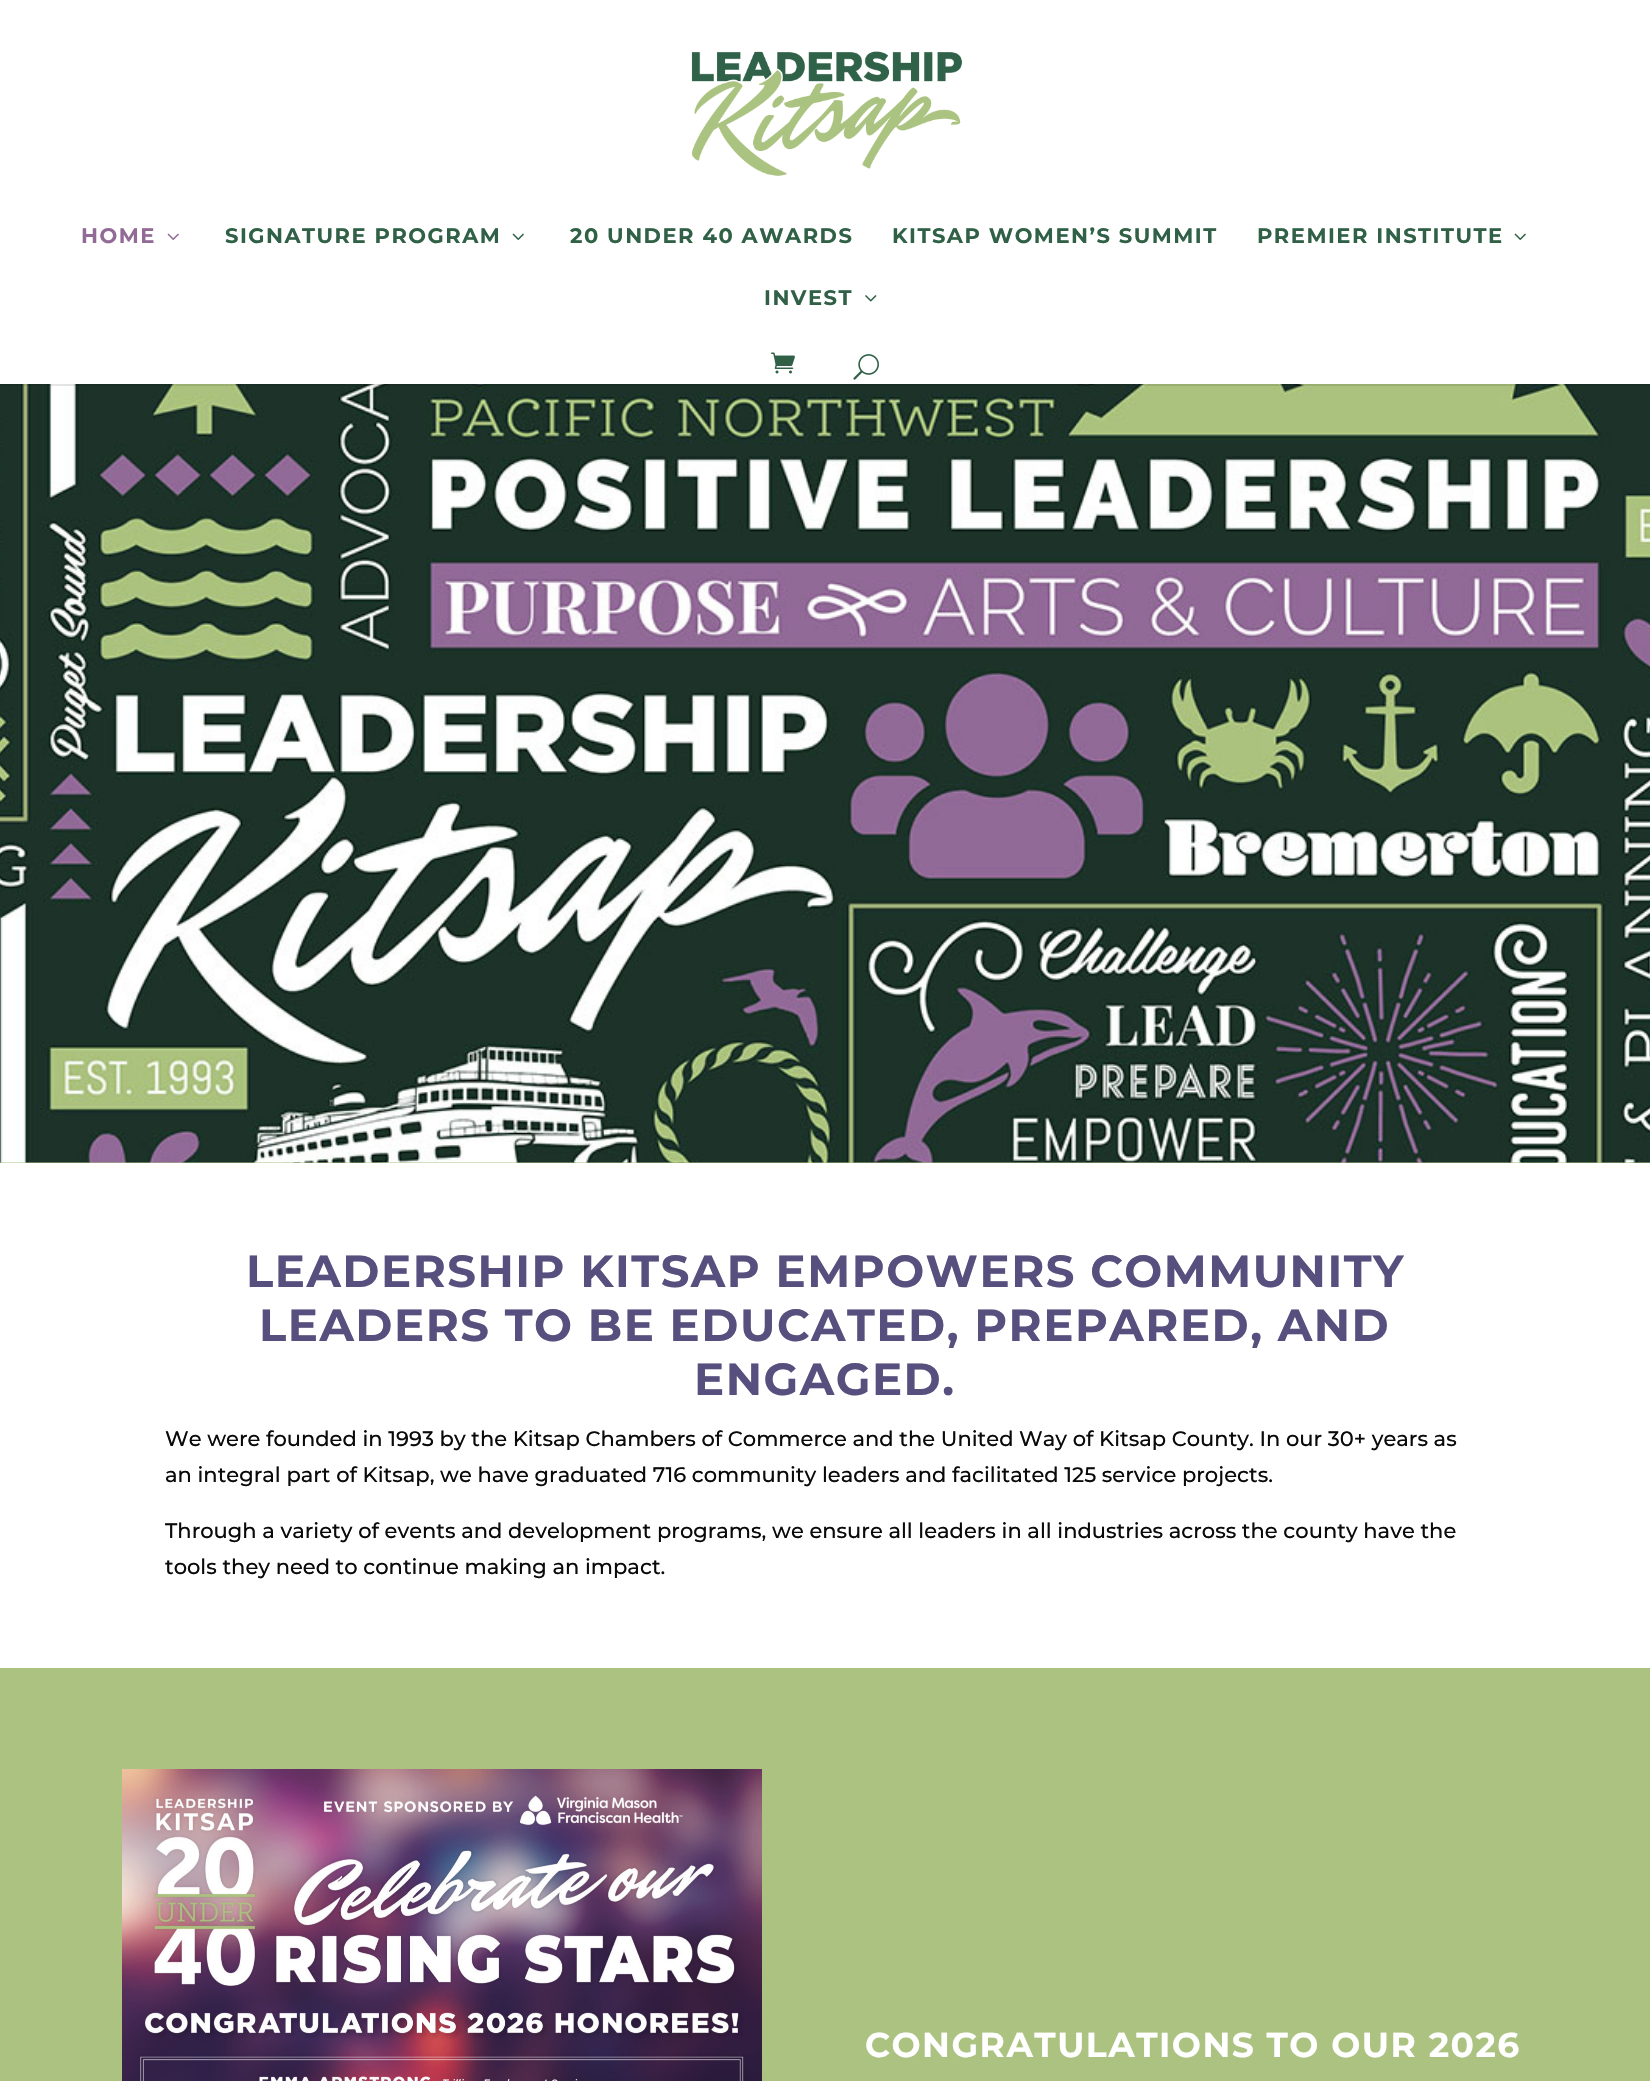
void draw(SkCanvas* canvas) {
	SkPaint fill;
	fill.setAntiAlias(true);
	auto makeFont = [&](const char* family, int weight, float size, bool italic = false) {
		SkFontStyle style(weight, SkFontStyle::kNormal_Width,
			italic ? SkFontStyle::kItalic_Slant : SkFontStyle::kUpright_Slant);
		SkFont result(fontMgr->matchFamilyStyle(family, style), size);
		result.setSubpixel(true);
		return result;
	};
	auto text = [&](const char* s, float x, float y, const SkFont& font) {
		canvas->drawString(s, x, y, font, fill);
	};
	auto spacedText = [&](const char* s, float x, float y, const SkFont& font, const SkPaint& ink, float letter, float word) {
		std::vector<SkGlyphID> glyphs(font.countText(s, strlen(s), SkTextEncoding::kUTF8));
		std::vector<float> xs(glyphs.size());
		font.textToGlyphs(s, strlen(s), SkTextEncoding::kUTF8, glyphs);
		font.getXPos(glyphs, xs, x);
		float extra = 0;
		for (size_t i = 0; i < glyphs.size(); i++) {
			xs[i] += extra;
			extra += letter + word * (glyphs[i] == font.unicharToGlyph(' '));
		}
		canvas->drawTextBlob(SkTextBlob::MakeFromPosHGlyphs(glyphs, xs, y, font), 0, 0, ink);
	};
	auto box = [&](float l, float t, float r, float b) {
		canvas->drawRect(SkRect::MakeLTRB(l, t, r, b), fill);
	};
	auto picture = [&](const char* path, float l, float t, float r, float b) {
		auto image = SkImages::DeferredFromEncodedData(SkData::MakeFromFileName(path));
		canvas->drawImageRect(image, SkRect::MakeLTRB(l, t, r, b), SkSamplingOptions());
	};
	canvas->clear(0xFFFFFFFF);
	fill.setColor(0xFFABC280);
	box(0, 1162, 1650, 1163);
	picture("image6.png", 0, 384, 1650, 1163);
	fill.setColor(0x1A000000);
	box(0, 384, 1650, 386);
	picture("image0.png", 691, 51, 962, 176);
	picture("image1.png", 167, 233, 179, 240);
	picture("image2.png", 512, 233, 524, 240);
	picture("image2.png", 1514, 233, 1526, 240);
	picture("image3.png", 865, 295, 877, 302);
	picture("image4.png", 771, 352, 795, 374);
	picture("image5.png", 853, 354, 879, 380);
	fill.setColor(0xFFABC280);
	box(0, 1668, 1650, 2081);
	picture("image7.png", 122, 1769, 762, 2081);
	auto font1 = makeFont("Montserrat", 700, 21);
	fill.setColor(0xFF916B96);
	spacedText("HOME", 81, 243, font1, fill, 1.5f, 0);
	fill.setColor(0xFF306147);
	spacedText("SIGNATURE PROGRAM", 225, 243, font1, fill, 1.5f, 0);
	spacedText("20 UNDER 40 AWARDS", 570, 243, font1, fill, 1.5f, 0);
	spacedText("KITSAP WOMEN’S SUMMIT", 892, 243, font1, fill, 1.5f, 0);
	spacedText("PREMIER INSTITUTE", 1257, 243, font1, fill, 1.5f, 0);
	spacedText("INVEST", 764, 305, font1, fill, 1.5f, 0);
	auto font2 = makeFont("Montserrat", 700, 45);
	fill.setColor(0xFF574F7D);
	spacedText("LEADERSHIP KITSAP EMPOWERS COMMUNITY", 246, 1287, font2, fill, 1.5f, 0);
	spacedText("LEADERS TO BE EDUCATED, PREPARED, AND", 259, 1341, font2, fill, 1.5f, 0);
	spacedText("ENGAGED.", 694, 1395, font2, fill, 1.5f, 0);
	auto font3 = makeFont("Montserrat", 500, 21);
	fill.setColor(0xFF0A0A0A);
	text("We were founded in 1993 by the Kitsap Chambers of Commerce and the United Way of Kitsap County. In our 30+ years as", 165, 1446, font3);
	text("an integral part of Kitsap, we have graduated 716 community leaders and facilitated 125 service projects.", 165, 1482, font3);
	text("Through a variety of events and development programs, we ensure all leaders in all industries across the county have the", 165, 1538, font3);
	text("tools they need to continue making an impact.", 165, 1574, font3);
	auto font4 = makeFont("Montserrat", 700, 34.5f);
	fill.setColor(0xFFFFFFFF);
	spacedText("CONGRATULATIONS TO OUR 2026", 865, 2057, font4, fill, 1.5f, 0);
}
